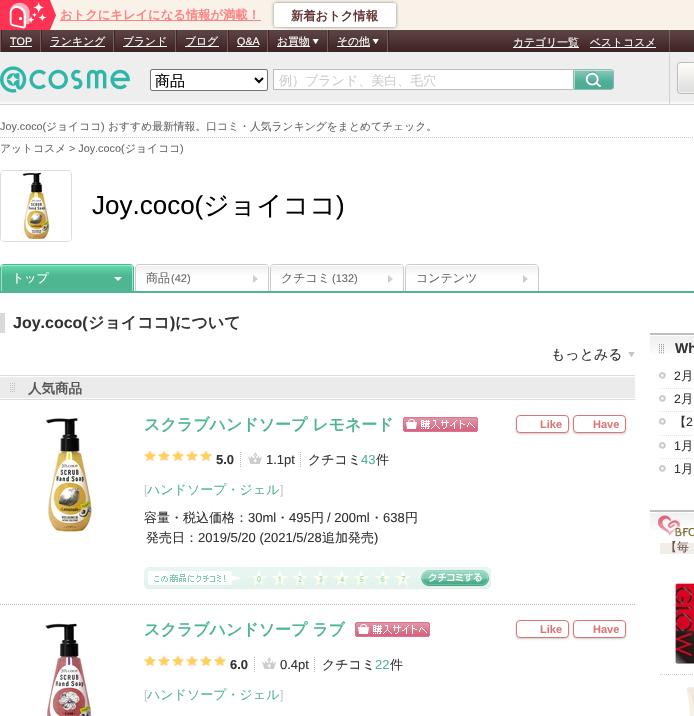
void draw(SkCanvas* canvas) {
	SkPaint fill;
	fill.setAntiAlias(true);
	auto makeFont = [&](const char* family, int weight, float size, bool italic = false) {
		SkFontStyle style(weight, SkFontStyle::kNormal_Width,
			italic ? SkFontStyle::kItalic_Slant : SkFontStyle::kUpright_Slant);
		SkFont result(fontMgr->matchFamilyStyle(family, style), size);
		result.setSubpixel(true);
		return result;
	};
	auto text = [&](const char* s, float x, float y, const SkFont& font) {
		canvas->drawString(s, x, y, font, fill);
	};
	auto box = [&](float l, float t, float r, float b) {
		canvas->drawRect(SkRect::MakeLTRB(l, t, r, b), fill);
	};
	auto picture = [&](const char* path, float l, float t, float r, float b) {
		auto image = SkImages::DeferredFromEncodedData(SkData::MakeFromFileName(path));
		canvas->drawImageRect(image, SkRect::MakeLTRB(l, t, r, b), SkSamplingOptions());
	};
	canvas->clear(0xFFFFFFFF);
	fill.setColor(0xFFF8F2E9);
	box(50, 0, 694, 30);
	picture("image0.png", 0, 0, 56, 30);
	fill.setColor(0xFFFF8182);
	box(60, 20, 261, 21);
	picture("image1.png", 271, 0, 399, 30);
	picture("image2.png", 0, 30, 694, 105);
	picture("image3.png", 669, 30, 670, 104);
	fill.setColor(0xFF402323);
	box(388, 30, 389, 52);
	fill.setColor(0xFF725D5D);
	box(0, 30, 1, 52);
	box(40, 30, 41, 52);
	fill.setColor(0xFF402323);
	box(1, 30, 2, 52);
	fill.setColor(0xFFFFFFFF);
	box(10, 46, 32, 47);
	fill.setColor(0xFF725D5D);
	box(113, 30, 114, 52);
	fill.setColor(0xFF402323);
	box(41, 30, 42, 52);
	fill.setColor(0xFFFFFFFF);
	box(50, 46, 105, 47);
	fill.setColor(0xFF725D5D);
	box(175, 30, 176, 52);
	fill.setColor(0xFF402323);
	box(114, 30, 115, 52);
	fill.setColor(0xFFFFFFFF);
	box(123, 46, 167, 47);
	fill.setColor(0xFF725D5D);
	box(227, 30, 228, 52);
	fill.setColor(0xFF402323);
	box(176, 30, 177, 52);
	fill.setColor(0xFFFFFFFF);
	box(185, 46, 219, 47);
	fill.setColor(0xFF725D5D);
	box(267, 30, 268, 52);
	fill.setColor(0xFF402323);
	box(228, 30, 229, 52);
	fill.setColor(0xFFFFFFFF);
	box(237, 46, 259, 47);
	fill.setColor(0xFF725D5D);
	box(327, 30, 328, 52);
	fill.setColor(0xFF402323);
	box(268, 30, 269, 52);
	fill.setColor(0xFFFFFFFF);
	box(277, 46, 310, 47);
	picture("image4.png", 312, 39, 319, 44);
	fill.setColor(0xFF725D5D);
	box(387, 30, 388, 52);
	fill.setColor(0xFF402323);
	box(328, 30, 329, 52);
	fill.setColor(0xFFFFFFFF);
	box(337, 46, 370, 47);
	picture("image4.png", 372, 39, 379, 44);
	box(513, 47, 579, 48);
	box(590, 47, 656, 48);
	picture("image5.png", 0, 66, 130, 93);
	canvas->drawRoundRect(SkRect::MakeLTRB(150.5f, 69.5f, 267.5f, 90.5f), 1.5f, 1.5f, fill);
	fill.setStyle(SkPaint::kStroke_Style);
	fill.setStrokeWidth(1);
	fill.setColor(0xFF767676);
	canvas->drawRoundRect(SkRect::MakeLTRB(150.5f, 69.5f, 267.5f, 90.5f), 1.5f, 1.5f, fill);
	fill.setStrokeWidth(2);
	fill.setColor(0xFF000000);
	canvas->drawPath(SkPathBuilder().moveTo(255, 78).lineTo(259, 82).lineTo(263, 78).detach(), fill);
	fill.setStyle(SkPaint::kFill_Style);
	fill.setColor(0xFFFFFFFF);
	canvas->drawRect(SkRect::MakeLTRB(273.5f, 69.5f, 573.5f, 89.5f), fill);
	fill.setStyle(SkPaint::kStroke_Style);
	fill.setStrokeWidth(1);
	fill.setColor(0xFFBBBBBB);
	canvas->drawRect(SkRect::MakeLTRB(273.5f, 69.5f, 573.5f, 89.5f), fill);
	picture("image6.png", 573, 69, 614, 90);
	picture("image7.png", 677, 62, 694, 94);
	fill.setColor(0xFFCCCCCC);
	fill.setPathEffect(SkDashPathEffect::Make({{1, 1}}, 0));
	canvas->drawPath(SkPathBuilder().moveTo(0, 137.5f).lineTo(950, 137.5f).detach(), fill);
	fill.setPathEffect(nullptr);
	fill.setColor(0xFFDDDDDD);
	canvas->drawRoundRect(SkRect::MakeLTRB(0.5f, 170.5f, 71.5f, 241.5f), 3.5f, 3.5f, fill);
	picture("image8.png", 1, 171, 71, 241);
	fill.setStyle(SkPaint::kFill_Style);
	fill.setColor(0xFF4EB691);
	box(0, 291, 694, 293);
	canvas->drawPath(SkPathBuilder(SkPathFillType::kEvenOdd).moveTo(4, 264).lineTo(130, 264).cubicTo(132, 264, 134, 266, 134, 268).lineTo(134, 291).lineTo(0, 291).lineTo(0, 268).cubicTo(0, 266, 2, 264, 4, 264).close().moveTo(4, 265).lineTo(130, 265).cubicTo(132, 265, 133, 266, 133, 268).lineTo(133, 291).lineTo(1, 291).lineTo(1, 268).cubicTo(1, 266, 2, 265, 4, 265).close().detach(), fill);
	canvas->save();
	canvas->clipPath(SkPathBuilder().moveTo(4, 265).lineTo(130, 265).cubicTo(131.5f, 265, 133, 266.5f, 133, 268).lineTo(133, 291).lineTo(1, 291).lineTo(1, 268).cubicTo(1, 266.5f, 2.5f, 265, 4, 265).close().detach(), true);
	{
		const SkColor colors[] = {0xFF60D8AA, 0xFF4EB691};
		const float stops[] = {0, 0.4f};
		const SkPoint ends[] = {{67, 266}, {67, 291}};
		fill.setShader(SkGradientShader::MakeLinear(ends, colors, stops, 2, SkTileMode::kClamp));
		fill.setAlpha(255);
	}
	box(1, 266, 133, 291);
	canvas->restore();
	fill.setShader(nullptr);
	fill.setColor(0xFF98E7C9);
	canvas->drawPath(SkPathBuilder(SkPathFillType::kEvenOdd).moveTo(4, 265).lineTo(130, 265).cubicTo(132, 265, 133, 266, 133, 268).lineTo(133, 291).lineTo(1, 291).lineTo(1, 268).cubicTo(1, 266, 2, 265, 4, 265).close().moveTo(4, 266).lineTo(130, 266).cubicTo(131, 266, 132, 267, 132, 268).lineTo(132, 291).lineTo(2, 291).lineTo(2, 268).cubicTo(2, 267, 3, 266, 4, 266).close().detach(), fill);
	fill.setColor(0xFFFFFFFF);
	canvas->drawPath(SkPathBuilder().moveTo(114, 277).lineTo(122, 277).lineTo(118, 281).close().detach(), fill);
	fill.setColor(0xFFCCCCCC);
	canvas->drawPath(SkPathBuilder(SkPathFillType::kEvenOdd).moveTo(139, 264).lineTo(265, 264).cubicTo(267, 264, 269, 266, 269, 268).lineTo(269, 291).lineTo(135, 291).lineTo(135, 268).cubicTo(135, 266, 137, 264, 139, 264).close().moveTo(139, 265).lineTo(265, 265).cubicTo(267, 265, 268, 266, 268, 268).lineTo(268, 291).lineTo(136, 291).lineTo(136, 268).cubicTo(136, 266, 137, 265, 139, 265).close().detach(), fill);
	canvas->save();
	canvas->clipPath(SkPathBuilder().moveTo(139, 265).lineTo(265, 265).cubicTo(266.5f, 265, 268, 266.5f, 268, 268).lineTo(268, 291).lineTo(136, 291).lineTo(136, 268).cubicTo(136, 266.5f, 137.5f, 265, 139, 265).close().detach(), true);
	{
		const SkColor colors[] = {0xFFEFEFEF, 0xFFFFFFFF};
		const float stops[] = {0, 0.4f};
		const SkPoint ends[] = {{202, 241}, {202, 266}};
		fill.setShader(SkGradientShader::MakeLinear(ends, colors, stops, 2, SkTileMode::kClamp));
		fill.setAlpha(255);
	}
	box(136, 265, 268, 266);
	{
		const SkColor colors[] = {0xFFEFEFEF, 0xFFFFFFFF};
		const float stops[] = {0, 0.4f};
		const SkPoint ends[] = {{202, 266}, {202, 291}};
		fill.setShader(SkGradientShader::MakeLinear(ends, colors, stops, 2, SkTileMode::kClamp));
		fill.setAlpha(255);
	}
	box(136, 266, 268, 291);
	canvas->restore();
	fill.setShader(nullptr);
	fill.setColor(0xFFFFFFFF);
	box(266, 265, 267, 266);
	fill.setColor(0xFFCCCCCC);
	canvas->drawPath(SkPathBuilder().moveTo(253, 283).lineTo(253, 275).lineTo(258, 279).close().detach(), fill);
	canvas->drawPath(SkPathBuilder(SkPathFillType::kEvenOdd).moveTo(274, 264).lineTo(400, 264).cubicTo(402, 264, 404, 266, 404, 268).lineTo(404, 291).lineTo(270, 291).lineTo(270, 268).cubicTo(270, 266, 272, 264, 274, 264).close().moveTo(274, 265).lineTo(400, 265).cubicTo(402, 265, 403, 266, 403, 268).lineTo(403, 291).lineTo(271, 291).lineTo(271, 268).cubicTo(271, 266, 272, 265, 274, 265).close().detach(), fill);
	canvas->save();
	canvas->clipPath(SkPathBuilder().moveTo(274, 265).lineTo(400, 265).cubicTo(401.5f, 265, 403, 266.5f, 403, 268).lineTo(403, 291).lineTo(271, 291).lineTo(271, 268).cubicTo(271, 266.5f, 272.5f, 265, 274, 265).close().detach(), true);
	{
		const SkColor colors[] = {0xFFEFEFEF, 0xFFFFFFFF};
		const float stops[] = {0, 0.4f};
		const SkPoint ends[] = {{337, 241}, {337, 266}};
		fill.setShader(SkGradientShader::MakeLinear(ends, colors, stops, 2, SkTileMode::kClamp));
		fill.setAlpha(255);
	}
	box(271, 265, 403, 266);
	{
		const SkColor colors[] = {0xFFEFEFEF, 0xFFFFFFFF};
		const float stops[] = {0, 0.4f};
		const SkPoint ends[] = {{337, 266}, {337, 291}};
		fill.setShader(SkGradientShader::MakeLinear(ends, colors, stops, 2, SkTileMode::kClamp));
		fill.setAlpha(255);
	}
	box(271, 266, 403, 291);
	canvas->restore();
	fill.setShader(nullptr);
	fill.setColor(0xFFFFFFFF);
	box(401, 265, 402, 266);
	fill.setColor(0xFFCCCCCC);
	canvas->drawPath(SkPathBuilder().moveTo(388, 283).lineTo(388, 275).lineTo(393, 279).close().detach(), fill);
	canvas->drawPath(SkPathBuilder(SkPathFillType::kEvenOdd).moveTo(409, 264).lineTo(535, 264).cubicTo(537, 264, 539, 266, 539, 268).lineTo(539, 291).lineTo(405, 291).lineTo(405, 268).cubicTo(405, 266, 407, 264, 409, 264).close().moveTo(409, 265).lineTo(535, 265).cubicTo(537, 265, 538, 266, 538, 268).lineTo(538, 291).lineTo(406, 291).lineTo(406, 268).cubicTo(406, 266, 407, 265, 409, 265).close().detach(), fill);
	canvas->save();
	canvas->clipPath(SkPathBuilder().moveTo(409, 265).lineTo(535, 265).cubicTo(536.5f, 265, 538, 266.5f, 538, 268).lineTo(538, 291).lineTo(406, 291).lineTo(406, 268).cubicTo(406, 266.5f, 407.5f, 265, 409, 265).close().detach(), true);
	{
		const SkColor colors[] = {0xFFEFEFEF, 0xFFFFFFFF};
		const float stops[] = {0, 0.4f};
		const SkPoint ends[] = {{472, 241}, {472, 266}};
		fill.setShader(SkGradientShader::MakeLinear(ends, colors, stops, 2, SkTileMode::kClamp));
		fill.setAlpha(255);
	}
	box(406, 265, 538, 266);
	{
		const SkColor colors[] = {0xFFEFEFEF, 0xFFFFFFFF};
		const float stops[] = {0, 0.4f};
		const SkPoint ends[] = {{472, 266}, {472, 291}};
		fill.setShader(SkGradientShader::MakeLinear(ends, colors, stops, 2, SkTileMode::kClamp));
		fill.setAlpha(255);
	}
	box(406, 266, 538, 291);
	canvas->restore();
	fill.setShader(nullptr);
	fill.setColor(0xFFFFFFFF);
	box(536, 265, 537, 266);
	fill.setColor(0xFFCCCCCC);
	canvas->drawPath(SkPathBuilder().moveTo(523, 283).lineTo(523, 275).lineTo(528, 279).close().detach(), fill);
	fill.setColor(0xFFD9D9D9);
	box(0, 313, 5, 333);
	picture("image9.png", 628, 352, 635, 357);
	fill.setColor(0xFFDBDBDB);
	box(0, 375, 635, 376);
	box(0, 399, 635, 400);
	fill.setColor(0xFFEBEBEB);
	box(0, 377, 635, 398);
	picture("image10.png", 10, 383, 15, 392);
	fill.setStyle(SkPaint::kStroke_Style);
	fill.setColor(0xFFBDB8AE);
	fill.setPathEffect(SkDashPathEffect::Make({{1, 1}}, 0));
	canvas->drawPath(SkPathBuilder().moveTo(0, 604.5f).lineTo(635, 604.5f).detach(), fill);
	fill.setPathEffect(nullptr);
	picture("image11.png", 46, 418, 93, 535);
	picture("image12.png", 403, 417, 478, 432);
	picture("image13.png", 144, 450, 156, 461);
	picture("image13.png", 158, 450, 170, 461);
	picture("image14.png", 172, 450, 184, 461);
	picture("image13.png", 186, 450, 198, 461);
	picture("image13.png", 200, 450, 212, 461);
	picture("image15.png", 240, 452, 241, 467);
	picture("image16.png", 248, 452, 262, 464);
	picture("image15.png", 300, 452, 301, 467);
	picture("image17.png", 144, 567, 491, 589);
	picture("image18.png", 251, 568, 268, 588);
	picture("image19.png", 271, 568, 288, 588);
	picture("image20.png", 291, 568, 309, 588);
	picture("image21.png", 313, 568, 330, 588);
	picture("image22.png", 333, 568, 351, 588);
	picture("image23.png", 353, 568, 371, 588);
	picture("image24.png", 374, 568, 391, 588);
	picture("image25.png", 394, 568, 412, 588);
	picture("image26.png", 421, 570, 489, 586);
	fill.setStyle(SkPaint::kFill_Style);
	fill.setColor(0x33000000);
	fill.setMaskFilter(SkMaskFilter::MakeBlur(kNormal_SkBlurStyle, 1));
	canvas->drawRoundRect(SkRect::MakeLTRB(516, 416, 569, 434), 4, 4, fill);
	fill.setMaskFilter(nullptr);
	fill.setColor(0xFFFFFFFF);
	canvas->drawRoundRect(SkRect::MakeLTRB(516.5f, 415.5f, 568.5f, 432.5f), 3.5f, 3.5f, fill);
	fill.setStyle(SkPaint::kStroke_Style);
	fill.setColor(0xFFD97777);
	canvas->drawRoundRect(SkRect::MakeLTRB(516.5f, 415.5f, 568.5f, 432.5f), 3.5f, 3.5f, fill);
	fill.setStyle(SkPaint::kFill_Style);
	fill.setColor(0xFFF7E4E4);
	box(524, 417, 525, 418);
	fill.setColor(0x33000000);
	fill.setMaskFilter(SkMaskFilter::MakeBlur(kNormal_SkBlurStyle, 1));
	canvas->drawRoundRect(SkRect::MakeLTRB(573, 416, 626, 434), 4, 4, fill);
	fill.setMaskFilter(nullptr);
	fill.setColor(0xFFFFFFFF);
	canvas->drawRoundRect(SkRect::MakeLTRB(573.5f, 415.5f, 625.5f, 432.5f), 3.5f, 3.5f, fill);
	fill.setStyle(SkPaint::kStroke_Style);
	fill.setColor(0xFFD97777);
	canvas->drawRoundRect(SkRect::MakeLTRB(573.5f, 415.5f, 625.5f, 432.5f), 3.5f, 3.5f, fill);
	fill.setStyle(SkPaint::kFill_Style);
	fill.setColor(0xFFF6DEDE);
	box(579, 417, 580, 418);
	picture("image27.png", 45, 623, 92, 716);
	picture("image12.png", 355, 622, 430, 637);
	picture("image13.png", 144, 655, 156, 666);
	picture("image13.png", 158, 655, 170, 666);
	picture("image14.png", 172, 655, 184, 666);
	picture("image13.png", 186, 655, 198, 666);
	picture("image13.png", 200, 655, 212, 666);
	picture("image13.png", 214, 655, 226, 666);
	picture("image15.png", 254, 657, 255, 672);
	picture("image16.png", 262, 657, 276, 669);
	picture("image15.png", 314, 657, 315, 672);
	fill.setColor(0x33000000);
	fill.setMaskFilter(SkMaskFilter::MakeBlur(kNormal_SkBlurStyle, 1));
	canvas->drawRoundRect(SkRect::MakeLTRB(516, 621, 569, 639), 4, 4, fill);
	fill.setMaskFilter(nullptr);
	fill.setColor(0xFFFFFFFF);
	canvas->drawRoundRect(SkRect::MakeLTRB(516.5f, 620.5f, 568.5f, 637.5f), 3.5f, 3.5f, fill);
	fill.setStyle(SkPaint::kStroke_Style);
	fill.setColor(0xFFD97777);
	canvas->drawRoundRect(SkRect::MakeLTRB(516.5f, 620.5f, 568.5f, 637.5f), 3.5f, 3.5f, fill);
	fill.setStyle(SkPaint::kFill_Style);
	fill.setColor(0xFFF7E4E4);
	box(524, 622, 525, 623);
	fill.setColor(0x33000000);
	fill.setMaskFilter(SkMaskFilter::MakeBlur(kNormal_SkBlurStyle, 1));
	canvas->drawRoundRect(SkRect::MakeLTRB(573, 621, 626, 639), 4, 4, fill);
	fill.setMaskFilter(nullptr);
	fill.setColor(0xFFFFFFFF);
	canvas->drawRoundRect(SkRect::MakeLTRB(573.5f, 620.5f, 625.5f, 637.5f), 3.5f, 3.5f, fill);
	fill.setStyle(SkPaint::kStroke_Style);
	fill.setColor(0xFFD97777);
	canvas->drawRoundRect(SkRect::MakeLTRB(573.5f, 620.5f, 625.5f, 637.5f), 3.5f, 3.5f, fill);
	fill.setStyle(SkPaint::kFill_Style);
	fill.setColor(0xFFF6DEDE);
	box(579, 622, 580, 623);
	picture("image28.png", 650, 336, 694, 354);
	fill.setColor(0xFFBFBFBF);
	box(650, 333, 694, 335);
	picture("image29.png", 659, 372, 666, 379);
	picture("image30.png", 660, 388, 693, 389);
	picture("image29.png", 659, 395, 666, 402);
	picture("image30.png", 660, 411, 693, 412);
	picture("image29.png", 659, 418, 666, 425);
	picture("image30.png", 660, 435, 693, 436);
	picture("image29.png", 659, 442, 666, 449);
	picture("image30.png", 660, 458, 693, 459);
	picture("image29.png", 659, 465, 666, 472);
	picture("image31.png", 650, 513, 694, 530);
	box(650, 510, 694, 512);
	picture("image32.png", 658, 515, 694, 537);
	fill.setColor(0xFFF1EEE8);
	box(660, 543, 694, 554);
	fill.setStyle(SkPaint::kStroke_Style);
	fill.setColor(0xFFCCCCCC);
	fill.setPathEffect(SkDashPathEffect::Make({{1, 1}}, 0));
	canvas->drawPath(SkPathBuilder().moveTo(660, 674.5f).lineTo(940, 674.5f).detach(), fill);
	fill.setPathEffect(nullptr);
	picture("image33.png", 671, 581, 694, 664);
	picture("image34.png", 686, 686, 694, 716);
	auto font1 = makeFont("WenQuanYi Zen Hei", 700, 12.3f);
	fill.setStyle(SkPaint::kFill_Style);
	fill.setColor(0xFFFF8182);
	text("おトクにキレイになる情報が満載！", 60, 19, font1);
	fill.setColor(0xFF663333);
	text("新着おトク情報", 291, 20, font1);
	auto font2 = makeFont("Liberation Sans", 400, 10.8f);
	fill.setColor(0xFFFFFFFF);
	text("TOP", 10, 45, font2);
	auto font3 = makeFont("WenQuanYi Zen Hei", 500, 10.8f);
	text("ランキング", 50, 45, font3);
	text("ブランド", 123, 45, font3);
	text("ブログ", 185, 45, font3);
	text("Q&A", 237, 45, font2);
	text("お買物", 277, 45, font3);
	text("その他", 337, 45, font3);
	text("カテゴリ一覧", 513, 46, font3);
	text("ベストコスメ", 590, 46, font3);
	auto font4 = makeFont("WenQuanYi Zen Hei", 500, 15);
	fill.setColor(0xFF000000);
	text("商品", 155, 86, font4);
	auto font5 = makeFont("WenQuanYi Zen Hei", 500, 13);
	fill.setColor(0xFFCCCCCC);
	text("例）ブランド、美白、毛穴", 279, 85, font5);
	fill.setColor(0xFF666666);
	text("Joy.coco(", 0, 130, font2);
	text("ジョイココ", 46, 130, font3);
	text(")", 101, 130, font2);
	text("おすすめ最新情報。口コミ・人気ランキングをまとめてチェック。", 108, 130, font3);
	text("アットコスメ", 0, 152, font3);
	text("> Joy.coco(", 69, 152, font2);
	text("ジョイココ", 125, 152, font3);
	text(")", 180, 152, font2);
	auto font6 = makeFont("Liberation Sans", 400, 26);
	fill.setColor(0xFF000000);
	text("Joy.coco(", 92, 214, font6);
	auto font7 = makeFont("WenQuanYi Zen Hei", 500, 26);
	text("ジョイココ", 203, 214, font7);
	text(")", 336, 214, font6);
	auto font8 = makeFont("WenQuanYi Zen Hei", 500, 12);
	fill.setColor(0xFFFFFFFF);
	text("トップ", 12, 282, font8);
	fill.setColor(0xFF666666);
	text("商品", 146, 282, font8);
	auto font9 = makeFont("Liberation Sans", 400, 11);
	text("(42)", 171, 282, font9);
	text("クチコミ", 281, 282, font8);
	text("(132)", 332, 282, font9);
	text("コンテンツ", 416, 282, font8);
	auto font10 = makeFont("Liberation Sans", 700, 16);
	fill.setColor(0xFF333333);
	text("Joy.coco(", 13, 328, font10);
	auto font11 = makeFont("WenQuanYi Zen Hei", 700, 16);
	text("ジョイココ", 88, 328, font11);
	text(")", 170, 328, font10);
	text("について", 175, 328, font11);
	auto font12 = makeFont("WenQuanYi Zen Hei", 500, 14);
	text("もっとみる", 551, 359, font12);
	auto font13 = makeFont("WenQuanYi Zen Hei", 700, 13.5f);
	fill.setColor(0xFF555555);
	text("人気商品", 28, 393, font13);
	fill.setColor(0xFF4EB691);
	text("スクラブハンドソープ レモネード", 144, 430, font11);
	auto font14 = makeFont("Liberation Sans", 700, 13);
	fill.setColor(0xFF333333);
	text("5.0", 216, 464, font14);
	auto font15 = makeFont("Liberation Sans", 400, 13);
	text("1.1pt", 266, 464, font15);
	text("クチコミ", 308, 464, font5);
	fill.setColor(0xFF4EB691);
	text("43", 361, 464, font15);
	fill.setColor(0xFF333333);
	text("件", 376, 464, font5);
	auto font16 = makeFont("Liberation Sans", 400, 12.3f);
	fill.setColor(0xFFCCCCCC);
	text("[", 144, 494, font16);
	fill.setColor(0xFF4EB691);
	text("ハンドソープ・ジェル", 147, 494, font5);
	fill.setColor(0xFFCCCCCC);
	text("]", 280, 494, font16);
	fill.setColor(0xFF333333);
	text("容量・税込価格：", 144, 522, font5);
	text("30ml", 248, 522, font15);
	text("・", 276, 522, font5);
	text("495", 289, 522, font15);
	text("円", 311, 522, font5);
	text("/ 200ml", 327, 522, font15);
	text("・", 370, 522, font5);
	text("638", 383, 522, font15);
	text("円", 405, 522, font5);
	text("発売日：", 146, 542, font5);
	text("2019/5/20 (2021/5/28", 198, 542, font15);
	text("追加発売", 322, 542, font5);
	text(")", 374, 542, font15);
	auto font17 = makeFont("Liberation Sans", 700, 11);
	fill.setColor(0xFFD97777);
	text("Like", 540, 428, font17);
	text("Have", 593, 428, font17);
	fill.setColor(0xFF4EB691);
	text("スクラブハンドソープ ラブ", 144, 635, font11);
	fill.setColor(0xFF333333);
	text("6.0", 230, 669, font14);
	text("0.4pt", 280, 669, font15);
	text("クチコミ", 322, 669, font5);
	fill.setColor(0xFF4EB691);
	text("22", 375, 669, font15);
	fill.setColor(0xFF333333);
	text("件", 390, 669, font5);
	fill.setColor(0xFFCCCCCC);
	text("[", 144, 699, font16);
	fill.setColor(0xFF4EB691);
	text("ハンドソープ・ジェル", 147, 699, font5);
	fill.setColor(0xFFCCCCCC);
	text("]", 280, 699, font16);
	fill.setColor(0xFFD97777);
	text("Like", 540, 633, font17);
	text("Have", 593, 633, font17);
	auto font18 = makeFont("Liberation Sans", 700, 14);
	fill.setColor(0xFF333333);
	text("Wh", 675, 353, font18);
	text("2", 674, 380, font16);
	auto font19 = makeFont("WenQuanYi Zen Hei", 500, 12.3f);
	text("月", 681, 380, font19);
	text("2", 674, 403, font16);
	text("月", 681, 403, font19);
	text("【", 674, 426, font19);
	text("2", 686, 426, font16);
	text("1", 674, 450, font16);
	text("月", 681, 450, font19);
	text("1", 674, 473, font16);
	text("月", 681, 473, font19);
	fill.setColor(0xFF775555);
	text("【毎", 665, 551, font8);
}
